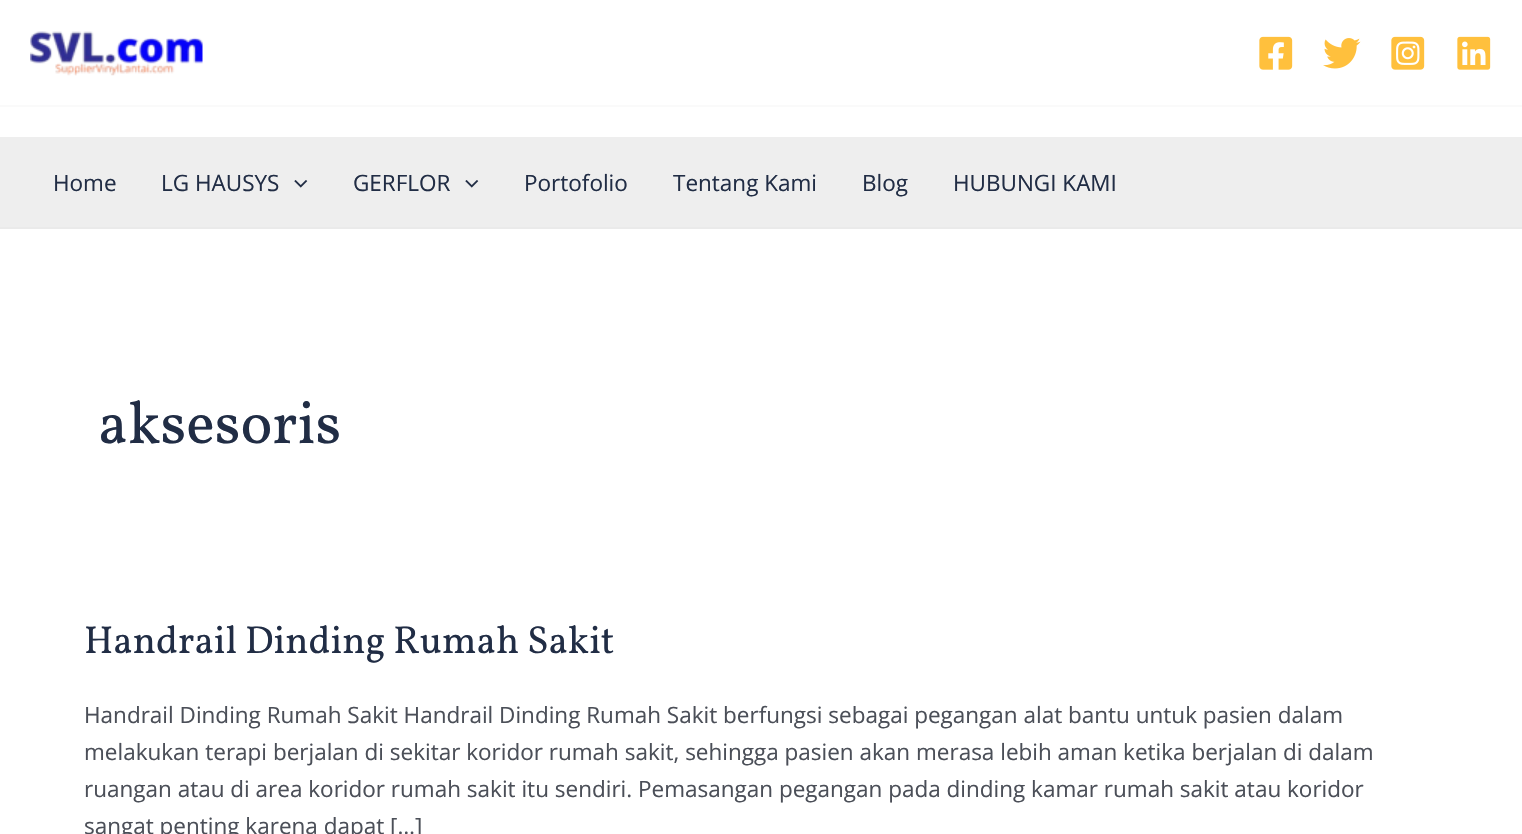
void draw(SkCanvas* canvas) {
	SkPaint fill;
	fill.setAntiAlias(true);
	auto makeFont = [&](const char* family, int weight, float size, bool italic = false) {
		SkFontStyle style(weight, SkFontStyle::kNormal_Width,
			italic ? SkFontStyle::kItalic_Slant : SkFontStyle::kUpright_Slant);
		SkFont result(fontMgr->matchFamilyStyle(family, style), size);
		result.setSubpixel(true);
		return result;
	};
	auto text = [&](const char* s, float x, float y, const SkFont& font) {
		canvas->drawString(s, x, y, font, fill);
	};
	auto box = [&](float l, float t, float r, float b) {
		canvas->drawRect(SkRect::MakeLTRB(l, t, r, b), fill);
	};
	auto picture = [&](const char* path, float l, float t, float r, float b) {
		auto image = SkImages::DeferredFromEncodedData(SkData::MakeFromFileName(path));
		canvas->drawImageRect(image, SkRect::MakeLTRB(l, t, r, b), SkSamplingOptions());
	};
	canvas->clear(0xFFFFFFFF);
	fill.setColor(0xFFFAFAFA);
	box(0, 105, 1522, 107);
	picture("image0.png", 30, 31, 203, 76);
	picture("image1.png", 1259, 36, 1293, 70);
	picture("image2.png", 1323, 38, 1361, 69);
	picture("image3.png", 1391, 36, 1425, 70);
	picture("image4.png", 1457, 36, 1491, 70);
	fill.setColor(0xFFEEEEEE);
	box(0, 137, 1522, 227);
	fill.setColor(0xFFEAEAEA);
	box(0, 227, 1522, 229);
	picture("image5.png", 294, 180, 308, 188);
	picture("image5.png", 465, 180, 479, 188);
	auto font1 = makeFont("Open Sans", 400, 22.5f);
	fill.setColor(0xFF212D45);
	text("Home", 53, 191, font1);
	text("LG HAUSYS", 161, 191, font1);
	text("GERFLOR", 353, 191, font1);
	text("Portofolio", 524, 191, font1);
	text("Tentang Kami", 673, 191, font1);
	text("Blog", 862, 191, font1);
	text("HUBUNGI KAMI", 953, 191, font1);
	auto font2 = makeFont("Vollkorn", 400, 60);
	text("aksesoris", 98, 443, font2);
	auto font3 = makeFont("Vollkorn", 400, 39);
	text("Handrail Dinding Rumah Sakit", 84, 653, font3);
	fill.setColor(0xFF4B4F58);
	text("Handrail Dinding Rumah Sakit Handrail Dinding Rumah Sakit berfungsi sebagai pegangan alat bantu untuk pasien dalam", 84, 723, font1);
	text("melakukan terapi berjalan di sekitar koridor rumah sakit, sehingga pasien akan merasa lebih aman ketika berjalan di dalam", 84, 760, font1);
	text("ruangan atau di area koridor rumah sakit itu sendiri. Pemasangan pegangan pada dinding kamar rumah sakit atau koridor", 84, 797, font1);
	text("sangat penting karena dapat […]", 84, 834, font1);
}
